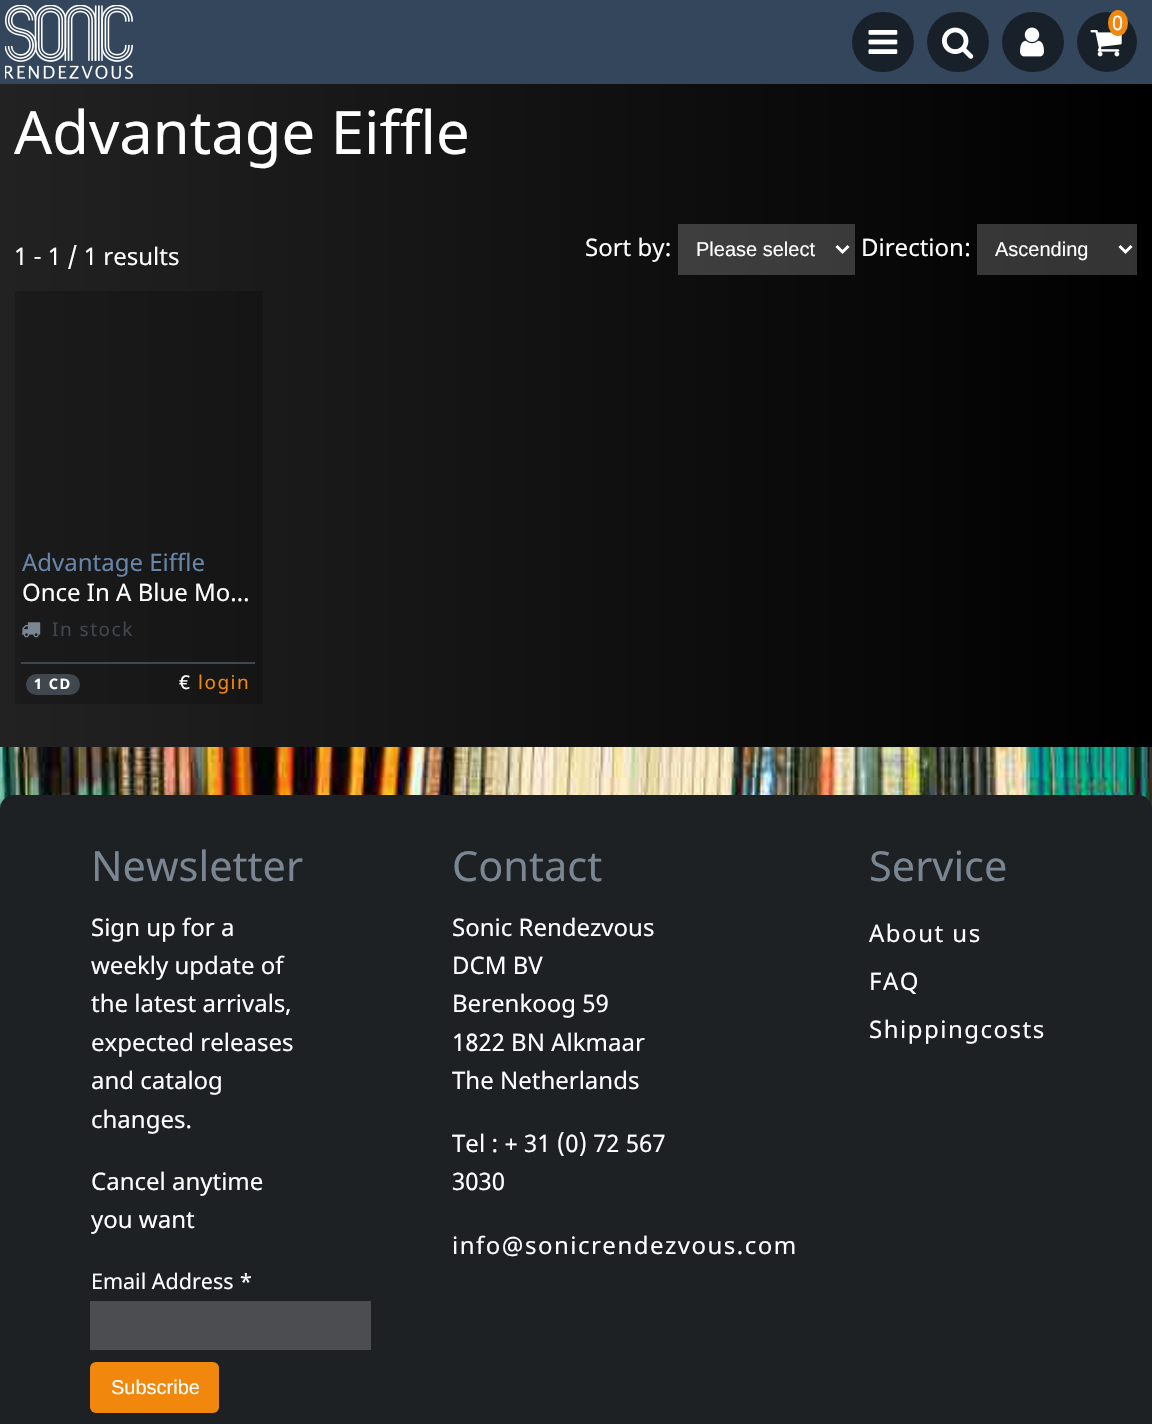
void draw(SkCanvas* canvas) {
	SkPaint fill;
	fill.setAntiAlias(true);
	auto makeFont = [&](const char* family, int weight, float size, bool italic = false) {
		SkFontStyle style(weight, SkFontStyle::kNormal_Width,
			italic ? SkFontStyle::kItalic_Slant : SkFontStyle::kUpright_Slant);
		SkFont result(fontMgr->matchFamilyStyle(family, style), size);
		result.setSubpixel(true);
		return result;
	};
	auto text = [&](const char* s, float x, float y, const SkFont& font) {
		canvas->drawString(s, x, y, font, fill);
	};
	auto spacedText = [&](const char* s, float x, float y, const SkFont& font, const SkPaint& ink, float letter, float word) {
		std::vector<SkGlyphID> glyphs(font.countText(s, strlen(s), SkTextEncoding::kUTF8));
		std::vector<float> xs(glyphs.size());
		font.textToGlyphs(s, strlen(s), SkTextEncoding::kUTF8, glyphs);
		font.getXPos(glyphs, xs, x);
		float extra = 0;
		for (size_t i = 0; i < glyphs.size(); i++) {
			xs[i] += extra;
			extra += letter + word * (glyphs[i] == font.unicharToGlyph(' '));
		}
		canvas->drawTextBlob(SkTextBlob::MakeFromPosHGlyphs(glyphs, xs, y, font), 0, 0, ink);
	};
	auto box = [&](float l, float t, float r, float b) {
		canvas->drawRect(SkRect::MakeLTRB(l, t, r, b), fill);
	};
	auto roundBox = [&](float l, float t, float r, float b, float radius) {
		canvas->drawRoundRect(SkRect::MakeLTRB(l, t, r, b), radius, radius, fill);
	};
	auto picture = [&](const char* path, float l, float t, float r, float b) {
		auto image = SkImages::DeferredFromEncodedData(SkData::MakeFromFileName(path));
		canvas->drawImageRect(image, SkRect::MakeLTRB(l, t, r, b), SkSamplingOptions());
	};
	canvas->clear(0xFFFFFFFF);
	{
		const SkColor colors[] = {0xFF222222, 0xFF000000};
		const float stops[] = {0, 1};
		const SkPoint ends[] = {{0, 713}, {1152, 713}};
		fill.setShader(SkGradientShader::MakeLinear(ends, colors, stops, 2, SkTileMode::kClamp));
		fill.setAlpha(255);
	}
	box(0, 84, 1152, 747);
	{
		const SkColor colors[] = {0xFF4E4E4E, 0xFF333333};
		const float stops[] = {0, 1};
		const SkPoint ends[] = {{0, 713}, {1152, 713}};
		fill.setShader(SkGradientShader::MakeLinear(ends, colors, stops, 2, SkTileMode::kClamp));
		fill.setAlpha(255);
	}
	box(977, 224, 1137, 275);
	box(678, 224, 855, 275);
	{
		const SkColor colors[] = {0xFF1B1B1B, 0xFF000000};
		const float stops[] = {0, 1};
		const SkPoint ends[] = {{0, 713}, {1152, 713}};
		fill.setShader(SkGradientShader::MakeLinear(ends, colors, stops, 2, SkTileMode::kClamp));
		fill.setAlpha(255);
	}
	box(15, 291, 263, 704);
	fill.setShader(nullptr);
	fill.setColor(0xFF33465B);
	box(0, 0, 1152, 84);
	picture("image0.png", 5, 5, 133, 79);
	fill.setColor(0xFF18212A);
	roundBox(852, 12, 914, 72, 30);
	picture("image1.png", 868, 30, 898, 54);
	roundBox(927, 12, 989, 72, 30);
	picture("image2.png", 942, 27, 974, 59);
	roundBox(1002, 12, 1064, 72, 30);
	picture("image3.png", 1020, 27, 1044, 57);
	canvas->drawCircle(1107, 42, 30, fill);
	picture("image4.png", 1090, 30, 1122, 57);
	fill.setColor(0xFFF2870D);
	canvas->drawOval(SkRect::MakeLTRB(1108, 10, 1128, 36), fill);
	picture("image5.png", 21, 622, 41, 638);
	fill.setColor(0xFF40474F);
	box(21, 662, 255, 664);
	roundBox(26, 674, 80, 695, 10.5f);
	fill.setStyle(SkPaint::kStroke_Style);
	fill.setStrokeWidth(3);
	fill.setColor(0xFFFFFFFF);
	canvas->drawPath(SkPathBuilder().moveTo(836.5f, 246).lineTo(842.5f, 252).lineTo(848.5f, 246).detach(), fill);
	canvas->drawPath(SkPathBuilder().moveTo(1119.5f, 246).lineTo(1125.5f, 252).lineTo(1131.5f, 246).detach(), fill);
	picture("image6.png", 0, 747, 1152, 809);
	fill.setStyle(SkPaint::kFill_Style);
	fill.setColor(0xFF1E2124);
	roundBox(0, 795, 1152, 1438, 14);
	fill.setColor(0xFF4B4D50);
	box(90, 1301, 371, 1350);
	fill.setColor(0xFFF2870D);
	roundBox(90, 1362, 219, 1413, 6);
	auto font1 = makeFont("Noto Sans", 400, 20);
	fill.setColor(0xFFFFFFFF);
	spacedText("0", 1112, 30, font1, fill, 1.5f, 0);
	auto font2 = makeFont("Noto Sans", 400, 59.75f);
	text("Advantage Eiffle", 14, 154, font2);
	auto font3 = makeFont("Noto Sans", 400, 24);
	text("1 - 1 / 1 results", 14, 265, font3);
	fill.setColor(0xFF6685A9);
	text("Advantage Eiffle", 22, 571, font3);
	fill.setColor(0xFFFFFFFF);
	text("Once In A Blue Mo…", 22, 601, font3);
	auto font4 = makeFont("Noto Sans", 400, 19);
	fill.setColor(0xFF40474F);
	spacedText("In stock", 52, 636, font4, fill, 1.5f, 0);
	auto font5 = makeFont("Noto Sans", 700, 14.5f);
	fill.setColor(0xFFFFFFFF);
	spacedText("1 CD", 34, 689, font5, fill, 1.5f, 0);
	spacedText("€", 179, 689, font4, fill, 1.5f, 0);
	fill.setColor(0xFFF2870D);
	spacedText("login", 198, 689, font4, fill, 1.5f, 0);
	fill.setColor(0xFFFFFFFF);
	text("Sort by:", 585, 256, font3);
	auto font6 = makeFont("Liberation Sans", 400, 20);
	text("Please select", 696, 256, font6);
	text("Direction:", 861, 256, font3);
	text("Ascending", 995, 256, font6);
	auto font7 = makeFont("Noto Sans", 400, 41.5f);
	fill.setColor(0xFF7B8693);
	text("Newsletter", 91, 881, font7);
	fill.setColor(0xFFFFFFFF);
	text("Sign up for a", 91, 936, font3);
	text("weekly update of", 91, 974, font3);
	text("the latest arrivals,", 91, 1012, font3);
	text("expected releases", 91, 1051, font3);
	text("and catalog", 91, 1089, font3);
	text("changes.", 91, 1128, font3);
	text("Cancel anytime", 91, 1190, font3);
	text("you want", 91, 1228, font3);
	auto font8 = makeFont("Noto Sans", 400, 21.5f);
	text("Email Address *", 91, 1289, font8);
	text("Subscribe", 111, 1394, font6);
	fill.setColor(0xFF7B8693);
	text("Contact", 452, 881, font7);
	fill.setColor(0xFFFFFFFF);
	text("Sonic Rendezvous", 452, 936, font3);
	text("DCM BV", 452, 974, font3);
	text("Berenkoog 59", 452, 1012, font3);
	text("1822 BN Alkmaar", 452, 1051, font3);
	text("The Netherlands", 452, 1089, font3);
	text("Tel : + 31 (0) 72 567", 452, 1152, font3);
	text("3030", 452, 1190, font3);
	spacedText("info@sonicrendezvous.com", 452, 1254, font3, fill, 1.5f, 0);
	fill.setColor(0xFF7B8693);
	text("Service", 869, 881, font7);
	fill.setColor(0xFFFFFFFF);
	spacedText("About us", 869, 942, font3, fill, 1.5f, 0);
	spacedText("FAQ", 869, 990, font3, fill, 1.5f, 0);
	spacedText("Shippingcosts", 869, 1038, font3, fill, 1.5f, 0);
}
